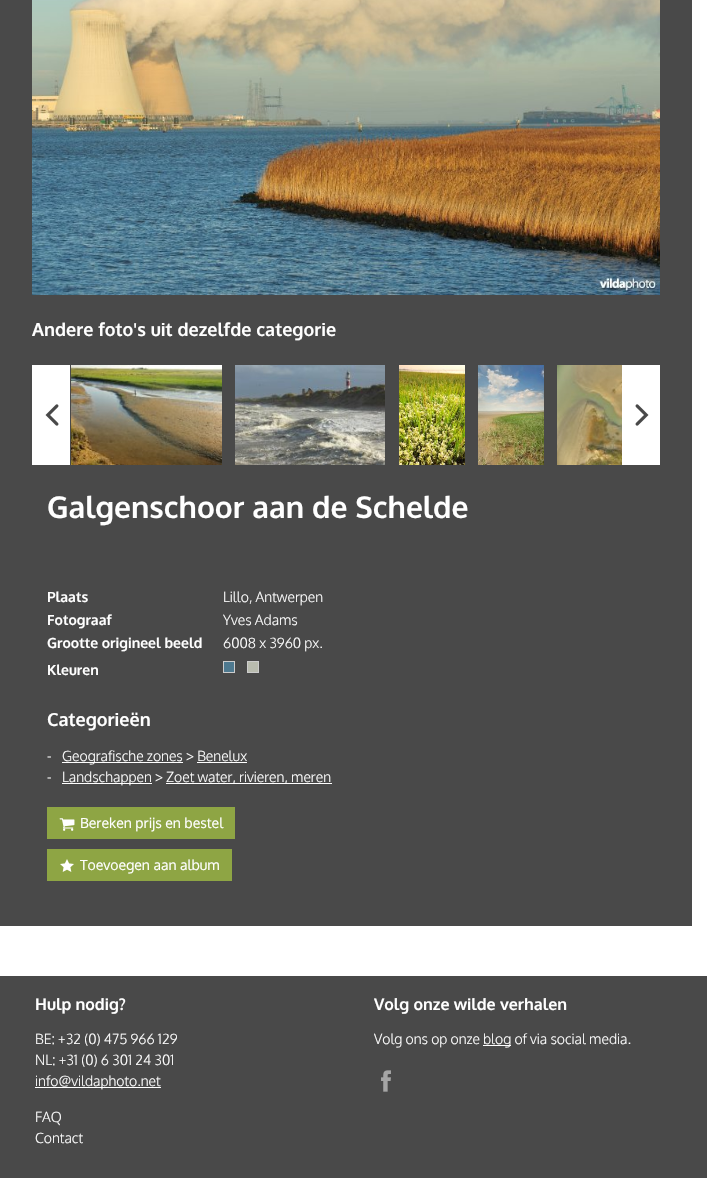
void draw(SkCanvas* canvas) {
	SkPaint fill;
	fill.setAntiAlias(true);
	auto makeFont = [&](const char* family, int weight, float size, bool italic = false) {
		SkFontStyle style(weight, SkFontStyle::kNormal_Width,
			italic ? SkFontStyle::kItalic_Slant : SkFontStyle::kUpright_Slant);
		SkFont result(fontMgr->matchFamilyStyle(family, style), size);
		result.setSubpixel(true);
		return result;
	};
	auto text = [&](const char* s, float x, float y, const SkFont& font) {
		canvas->drawString(s, x, y, font, fill);
	};
	auto box = [&](float l, float t, float r, float b) {
		canvas->drawRect(SkRect::MakeLTRB(l, t, r, b), fill);
	};
	auto picture = [&](const char* path, float l, float t, float r, float b) {
		auto image = SkImages::DeferredFromEncodedData(SkData::MakeFromFileName(path));
		canvas->drawImageRect(image, SkRect::MakeLTRB(l, t, r, b), SkSamplingOptions());
	};
	canvas->clear(0xFFFFFFFF);
	fill.setColor(0xFF494949);
	box(0, 0, 692, 926);
	picture("image0.png", 32, 0, 660, 295);
	fill.setColor(0xFFFFFFFF);
	box(32, 365, 70, 465);
	picture("image1.png", 45, 404, 59, 426);
	box(622, 365, 660, 465);
	picture("image2.png", 635, 404, 649, 426);
	picture("image3.png", 71, 365, 222, 465);
	picture("image4.png", 235, 365, 385, 465);
	picture("image5.png", 399, 365, 465, 465);
	picture("image6.png", 478, 365, 544, 465);
	picture("image7.png", 557, 365, 622, 465);
	fill.setColor(0xFF4E798F);
	canvas->drawRect(SkRect::MakeLTRB(223.5f, 661.5f, 234.5f, 672.5f), fill);
	fill.setStyle(SkPaint::kStroke_Style);
	fill.setStrokeWidth(1);
	fill.setColor(0xFFCCCCCC);
	canvas->drawRect(SkRect::MakeLTRB(223.5f, 661.5f, 234.5f, 672.5f), fill);
	fill.setStyle(SkPaint::kFill_Style);
	fill.setColor(0xFFB9BCAF);
	canvas->drawRect(SkRect::MakeLTRB(247.5f, 661.5f, 258.5f, 672.5f), fill);
	fill.setStyle(SkPaint::kStroke_Style);
	fill.setColor(0xFFCCCCCC);
	canvas->drawRect(SkRect::MakeLTRB(247.5f, 661.5f, 258.5f, 672.5f), fill);
	fill.setStyle(SkPaint::kFill_Style);
	fill.setColor(0xFFFFFFFF);
	box(62, 762, 183, 763);
	box(197, 762, 247, 763);
	box(62, 783, 152, 784);
	box(166, 783, 332, 784);
	fill.setColor(0xFF8EA544);
	box(47, 807, 235, 839);
	picture("image8.png", 59, 818, 75, 831);
	box(47, 849, 232, 881);
	picture("image9.png", 60, 859, 74, 872);
	fill.setColor(0xFF494949);
	box(0, 976, 707, 1178);
	fill.setColor(0xFFFFFFFF);
	box(35, 1087, 161, 1088);
	box(483, 1045, 511, 1046);
	picture("image10.png", 381, 1070, 391, 1092);
	auto font1 = makeFont("Oxygen", 700, 18);
	text("Andere foto's uit dezelfde categorie", 32, 336, font1);
	auto font2 = makeFont("Oxygen", 700, 30);
	text("Galgenschoor aan de Schelde", 47, 518, font2);
	auto font3 = makeFont("Oxygen", 700, 14);
	text("Plaats", 47, 602, font3);
	auto font4 = makeFont("Oxygen", 300, 14);
	text("Lillo, Antwerpen", 223, 602, font4);
	text("Fotograaf", 47, 625, font3);
	text("Yves Adams", 223, 625, font4);
	text("Grootte origineel beeld", 47, 648, font3);
	text("6008 x 3960 px.", 223, 648, font4);
	text("Kleuren", 47, 675, font3);
	text("Categorieën", 47, 726, font1);
	text("-", 47, 761, font4);
	text("Geografische zones > Benelux", 62, 761, font4);
	text("-", 47, 782, font4);
	text("Landschappen >", 62, 782, font4);
	text("Zoet water, rivieren, meren", 166, 782, font4);
	auto font5 = makeFont("Oxygen", 400, 14);
	text("Bereken prijs en bestel", 80, 828, font5);
	text("Toevoegen aan album", 80, 870, font5);
	auto font6 = makeFont("Oxygen", 700, 16);
	text("Hulp nodig?", 35, 1010, font6);
	text("BE: +32 (0) 475 966 129", 35, 1044, font4);
	text("NL: +31 (0) 6 301 24 301", 35, 1065, font4);
	text("info@vildaphoto.net", 35, 1086, font4);
	text("FAQ", 35, 1122, font4);
	text("Contact", 35, 1143, font4);
	text("Volg onze wilde verhalen", 374, 1010, font6);
	text("Volg ons op onze", 374, 1044, font4);
	text("blog of via social media.", 483, 1044, font4);
}
